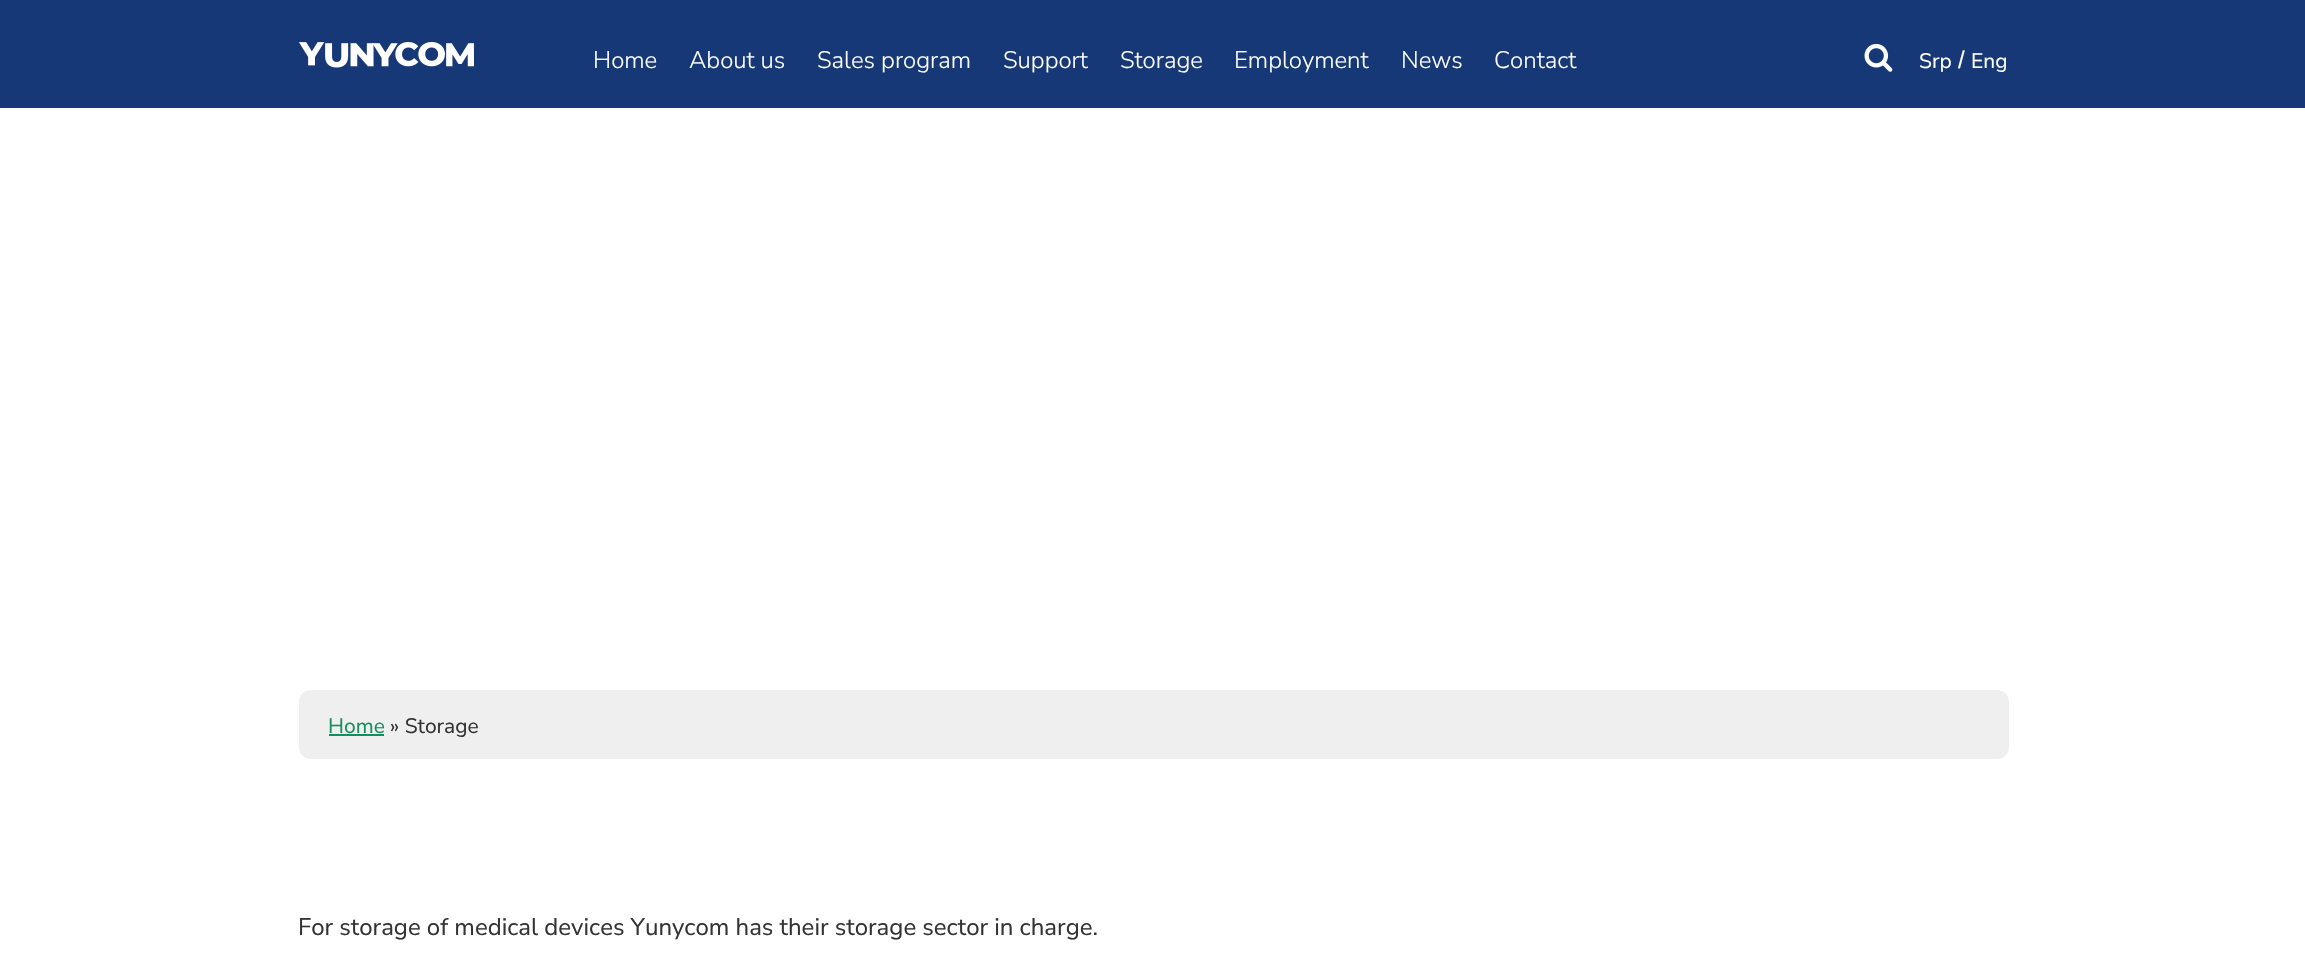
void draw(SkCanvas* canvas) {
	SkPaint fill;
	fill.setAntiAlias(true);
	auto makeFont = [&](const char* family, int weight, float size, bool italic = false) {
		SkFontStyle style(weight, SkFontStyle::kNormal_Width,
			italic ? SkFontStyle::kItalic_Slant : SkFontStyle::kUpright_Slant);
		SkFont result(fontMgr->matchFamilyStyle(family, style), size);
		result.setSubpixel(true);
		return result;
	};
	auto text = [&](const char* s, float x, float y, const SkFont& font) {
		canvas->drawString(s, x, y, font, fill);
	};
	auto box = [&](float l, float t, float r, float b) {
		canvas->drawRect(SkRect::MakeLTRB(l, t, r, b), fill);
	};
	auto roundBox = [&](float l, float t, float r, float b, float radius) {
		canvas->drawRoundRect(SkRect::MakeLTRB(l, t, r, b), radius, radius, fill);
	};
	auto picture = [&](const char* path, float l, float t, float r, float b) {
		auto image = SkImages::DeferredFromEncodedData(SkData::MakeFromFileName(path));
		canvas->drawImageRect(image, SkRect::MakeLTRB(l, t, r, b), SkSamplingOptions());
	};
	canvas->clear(0xFFFFFFFF);
	fill.setColor(0xFF173877);
	box(0, 0, 2305, 108);
	picture("image0.png", 299, 42, 474, 68);
	picture("image1.png", 1864, 43, 1893, 72);
	fill.setColor(0xFFEFEFEF);
	roundBox(299, 690, 2009, 759, 12);
	fill.setColor(0xFF148E61);
	box(329, 734, 384, 736);
	auto font1 = makeFont("Nunito Sans", 300, 24);
	fill.setColor(0xFFFFFFFF);
	text("Home", 593, 68, font1);
	text("About us", 689, 68, font1);
	text("Sales program", 817, 68, font1);
	text("Support", 1003, 68, font1);
	text("Storage", 1120, 68, font1);
	text("Employment", 1234, 68, font1);
	text("News", 1401, 68, font1);
	text("Contact", 1494, 68, font1);
	auto font2 = makeFont("Nunito Sans", 400, 21);
	text("Srp", 1919, 68, font2);
	auto font3 = makeFont("Liberation Sans", 400, 24);
	text("/", 1958, 68, font3);
	text("Eng", 1971, 68, font2);
	fill.setColor(0xFF148E61);
	text("Home", 328, 733, font2);
	fill.setColor(0xFF333333);
	text("» Storage", 390, 733, font2);
	auto font4 = makeFont("Nunito Sans", 400, 24);
	text("For storage of medical devices Yunycom has their storage sector in charge.", 298, 935, font4);
}
